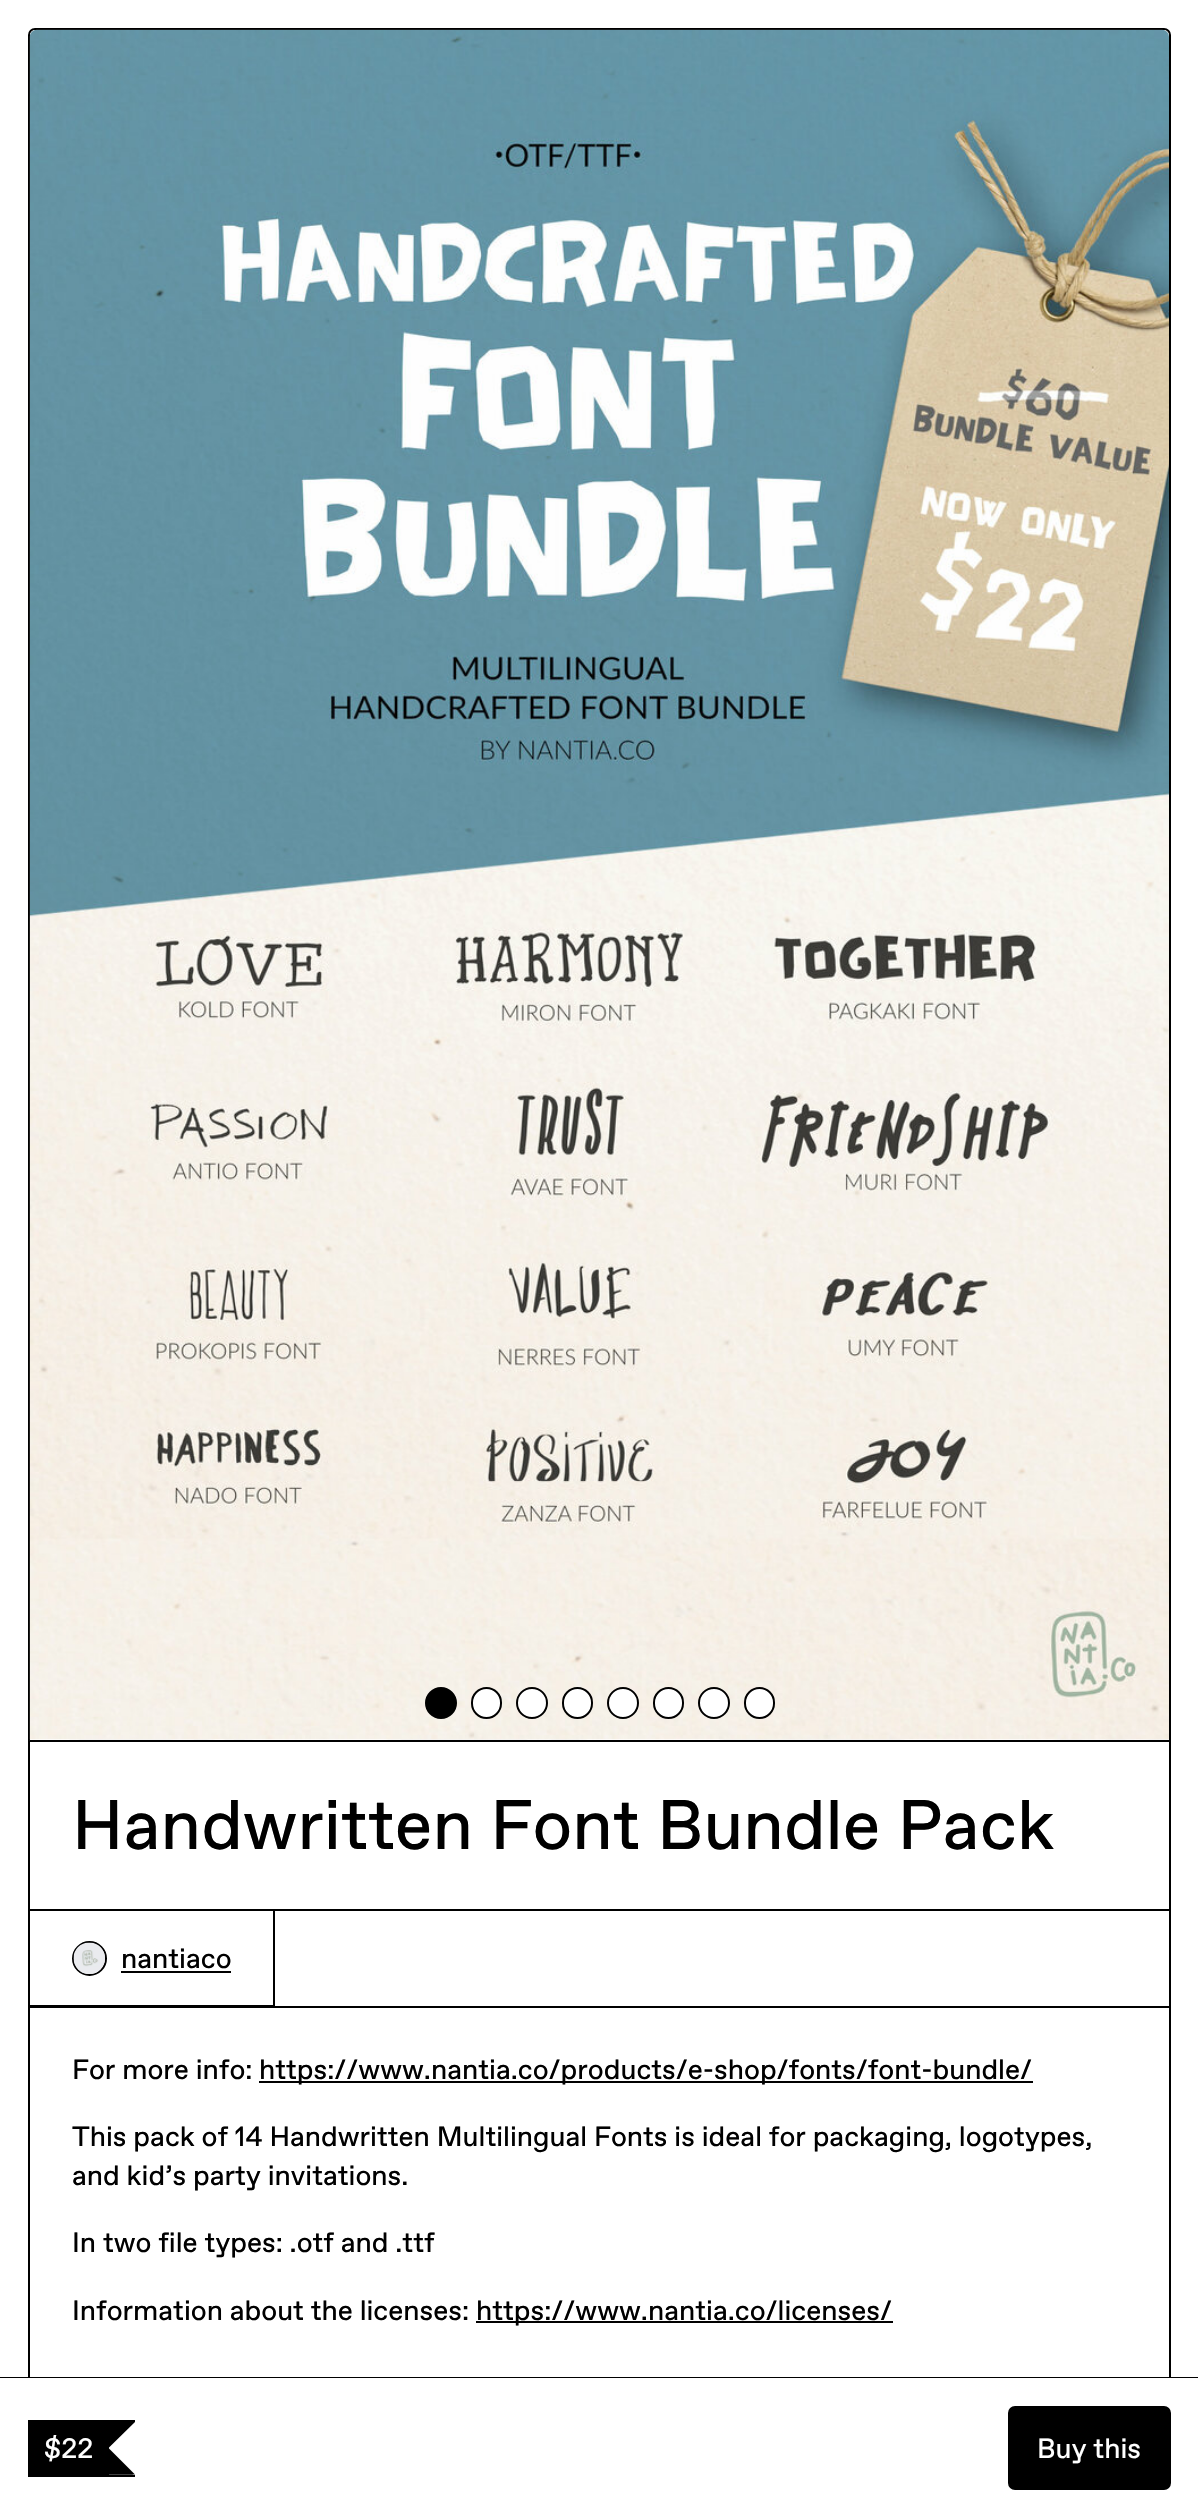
void draw(SkCanvas* canvas) {
	SkPaint fill;
	fill.setAntiAlias(true);
	auto makeFont = [&](const char* family, int weight, float size, bool italic = false) {
		SkFontStyle style(weight, SkFontStyle::kNormal_Width,
			italic ? SkFontStyle::kItalic_Slant : SkFontStyle::kUpright_Slant);
		SkFont result(fontMgr->matchFamilyStyle(family, style), size);
		result.setSubpixel(true);
		return result;
	};
	auto text = [&](const char* s, float x, float y, const SkFont& font) {
		canvas->drawString(s, x, y, font, fill);
	};
	auto box = [&](float l, float t, float r, float b) {
		canvas->drawRect(SkRect::MakeLTRB(l, t, r, b), fill);
	};
	auto picture = [&](const char* path, float l, float t, float r, float b) {
		auto image = SkImages::DeferredFromEncodedData(SkData::MakeFromFileName(path));
		canvas->drawImageRect(image, SkRect::MakeLTRB(l, t, r, b), SkSamplingOptions());
	};
	canvas->clear(0xFFFFFFFF);
	fill.setStyle(SkPaint::kStroke_Style);
	fill.setStrokeWidth(2);
	fill.setColor(0xFF000000);
	canvas->drawRoundRect(SkRect::MakeLTRB(29, 29, 1170, 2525), 6, 6, fill);
	picture("image0.png", 29, 29, 1169, 1741);
	fill.setStyle(SkPaint::kFill_Style);
	box(30, 1740, 1169, 1742);
	picture("image1.png", 29, 29, 1169, 1740);
	canvas->drawCircle(441, 1703, 15, fill);
	fill.setStyle(SkPaint::kStroke_Style);
	canvas->drawCircle(441, 1703, 15, fill);
	fill.setStyle(SkPaint::kFill_Style);
	fill.setColor(0xFFFFFFFF);
	canvas->drawRoundRect(SkRect::MakeLTRB(472, 1688, 501, 1718), 14.5f, 14.5f, fill);
	fill.setStyle(SkPaint::kStroke_Style);
	fill.setColor(0xFF000000);
	canvas->drawRoundRect(SkRect::MakeLTRB(472, 1688, 501, 1718), 14.5f, 14.5f, fill);
	fill.setStyle(SkPaint::kFill_Style);
	fill.setColor(0xFFFFFFFF);
	canvas->drawCircle(532, 1703, 15, fill);
	fill.setStyle(SkPaint::kStroke_Style);
	fill.setColor(0xFF000000);
	canvas->drawCircle(532, 1703, 15, fill);
	fill.setStyle(SkPaint::kFill_Style);
	fill.setColor(0xFFFFFFFF);
	canvas->drawRoundRect(SkRect::MakeLTRB(563, 1688, 592, 1718), 14.5f, 14.5f, fill);
	fill.setStyle(SkPaint::kStroke_Style);
	fill.setColor(0xFF000000);
	canvas->drawRoundRect(SkRect::MakeLTRB(563, 1688, 592, 1718), 14.5f, 14.5f, fill);
	fill.setStyle(SkPaint::kFill_Style);
	fill.setColor(0xFFFFFFFF);
	canvas->drawCircle(623, 1703, 15, fill);
	fill.setStyle(SkPaint::kStroke_Style);
	fill.setColor(0xFF000000);
	canvas->drawCircle(623, 1703, 15, fill);
	fill.setStyle(SkPaint::kFill_Style);
	fill.setColor(0xFFFFFFFF);
	canvas->drawRoundRect(SkRect::MakeLTRB(654, 1688, 683, 1718), 14.5f, 14.5f, fill);
	fill.setStyle(SkPaint::kStroke_Style);
	fill.setColor(0xFF000000);
	canvas->drawRoundRect(SkRect::MakeLTRB(654, 1688, 683, 1718), 14.5f, 14.5f, fill);
	fill.setStyle(SkPaint::kFill_Style);
	fill.setColor(0xFFFFFFFF);
	canvas->drawCircle(714, 1703, 15, fill);
	fill.setStyle(SkPaint::kStroke_Style);
	fill.setColor(0xFF000000);
	canvas->drawCircle(714, 1703, 15, fill);
	fill.setStyle(SkPaint::kFill_Style);
	fill.setColor(0xFFFFFFFF);
	canvas->drawRoundRect(SkRect::MakeLTRB(745, 1688, 774, 1718), 14.5f, 14.5f, fill);
	fill.setStyle(SkPaint::kStroke_Style);
	fill.setColor(0xFF000000);
	canvas->drawRoundRect(SkRect::MakeLTRB(745, 1688, 774, 1718), 14.5f, 14.5f, fill);
	fill.setStyle(SkPaint::kFill_Style);
	box(275, 1909, 1169, 1911);
	box(30, 2006, 1169, 2008);
	fill.setStyle(SkPaint::kStroke_Style);
	canvas->drawRect(SkRect::MakeLTRB(29, 1910, 274, 2006), fill);
	canvas->drawCircle(89.5f, 1958.5f, 16.5f, fill);
	picture("image2.png", 73, 1942, 105, 1974);
	fill.setStyle(SkPaint::kFill_Style);
	box(121, 1971, 231, 1973);
	box(259, 2081, 1033, 2083);
	box(476, 2321, 893, 2323);
	canvas->drawPath(SkPathBuilder().moveTo(0, 2377).lineTo(0, 2378).lineTo(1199, 2378).lineTo(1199, 2517).lineTo(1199, 2377).close().detach(), fill);
	fill.setColor(0xFFFFFFFF);
	box(28, 2378, 1171, 2517);
	fill.setColor(0xFF000000);
	box(28, 2420, 135, 2422);
	box(28, 2475, 135, 2477);
	box(28, 2420, 30, 2476);
	box(30, 2422, 107, 2475);
	canvas->drawPath(SkPathBuilder().moveTo(107, 2422).lineTo(135, 2422).lineTo(108.5f, 2448).close().moveTo(135, 2474.5f).lineTo(107, 2474.5f).lineTo(108.5f, 2448).close().detach(), fill);
	box(107, 2422, 109, 2475);
	canvas->drawPath(SkPathBuilder().moveTo(133, 2474.5f).lineTo(105, 2474.5f).lineTo(107, 2448).close().detach(), fill);
	canvas->drawRoundRect(SkRect::MakeLTRB(1009, 2407, 1170, 2489), 6, 6, fill);
	fill.setStyle(SkPaint::kStroke_Style);
	canvas->drawRoundRect(SkRect::MakeLTRB(1009, 2407, 1170, 2489), 6, 6, fill);
	auto font1 = makeFont("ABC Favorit", 400, 70);
	fill.setStyle(SkPaint::kFill_Style);
	text("Handwritten Font Bundle Pack", 72, 1849, font1);
	auto font2 = makeFont("ABC Favorit", 400, 28);
	text("nantiaco", 121, 1968, font2);
	text("For more info:", 72, 2079, font2);
	text("https://www.nantia.co/products/e-shop/fonts/font-bundle/", 259, 2079, font2);
	text("This pack of 14 Handwritten Multilingual Fonts is ideal for packaging, logotypes,", 72, 2146, font2);
	text("and kid’s party invitations.", 72, 2185, font2);
	text("In two file types: .otf and .ttf", 72, 2252, font2);
	text("Information about the licenses:", 72, 2320, font2);
	text("https://www.nantia.co/licenses/", 476, 2320, font2);
	fill.setColor(0xFFFFFFFF);
	text("$22", 44, 2458, font2);
	text("Buy this", 1037, 2458, font2);
}
